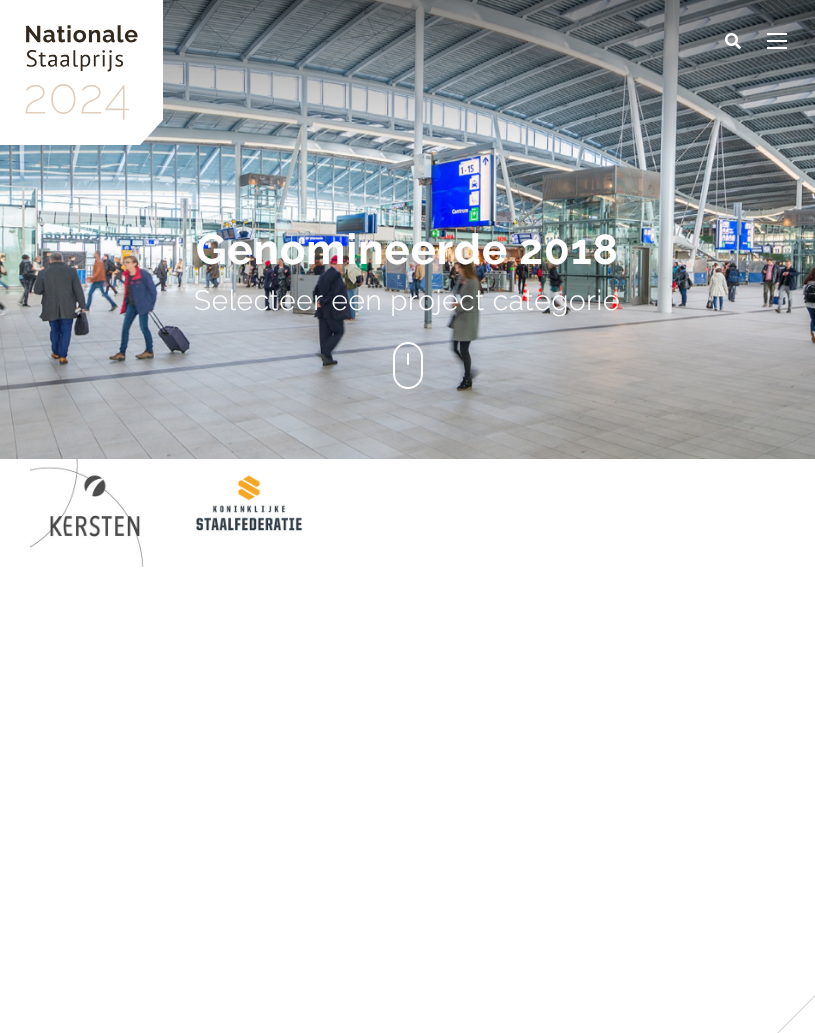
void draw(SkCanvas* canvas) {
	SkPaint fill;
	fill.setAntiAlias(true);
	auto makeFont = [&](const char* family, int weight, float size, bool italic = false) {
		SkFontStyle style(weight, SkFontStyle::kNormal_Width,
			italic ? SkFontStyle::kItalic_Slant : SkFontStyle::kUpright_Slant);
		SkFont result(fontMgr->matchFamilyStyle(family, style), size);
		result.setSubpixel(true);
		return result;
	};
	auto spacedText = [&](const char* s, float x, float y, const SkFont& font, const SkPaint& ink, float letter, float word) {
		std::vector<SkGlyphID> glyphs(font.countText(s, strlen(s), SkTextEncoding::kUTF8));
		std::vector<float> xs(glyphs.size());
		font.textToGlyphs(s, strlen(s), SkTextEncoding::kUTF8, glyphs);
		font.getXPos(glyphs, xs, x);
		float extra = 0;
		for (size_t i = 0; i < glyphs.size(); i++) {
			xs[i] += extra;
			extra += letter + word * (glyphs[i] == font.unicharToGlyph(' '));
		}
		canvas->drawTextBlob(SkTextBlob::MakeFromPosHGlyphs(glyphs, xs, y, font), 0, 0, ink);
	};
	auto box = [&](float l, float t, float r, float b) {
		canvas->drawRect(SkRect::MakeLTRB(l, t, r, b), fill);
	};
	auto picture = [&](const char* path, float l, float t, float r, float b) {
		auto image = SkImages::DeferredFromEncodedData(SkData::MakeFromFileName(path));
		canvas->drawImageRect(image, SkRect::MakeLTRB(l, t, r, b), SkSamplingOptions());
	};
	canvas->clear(0xFFFFFFFF);
	picture("image2.png", 0, 0, 815, 459);
	fill.setColor(0xFFFFFFFF);
	canvas->drawPath(SkPathBuilder().moveTo(0, 0).lineTo(0, 145).lineTo(140, 145).lineTo(163, 120).lineTo(163, 0).close().detach(), fill);
	picture("image0.png", 25, 25, 138, 120);
	picture("image1.png", 725, 33, 741, 49);
	box(767, 40, 787, 42);
	box(767, 33, 787, 35);
	box(767, 47, 787, 49);
	picture("image3.png", 393, 342, 423, 389);
	picture("image4.png", 30, 459, 144, 567);
	picture("image5.png", 196, 473, 302, 531);
	fill.setColor(0xFFD8D8D8);
	canvas->drawPath(SkPathBuilder().moveTo(657, 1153).lineTo(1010, 800).lineTo(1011, 800).lineTo(658, 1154).close().detach(), fill);
	auto font1 = makeFont("Raleway", 700, 42);
	fill.setColor(0xFFFFFFFF);
	spacedText("Genomineerde 2018", 196, 264, font1, fill, 1, 0);
	auto font2 = makeFont("Raleway", 300, 28);
	spacedText("Selecteer een project categorie", 194, 310, font2, fill, 0.7f, 0);
}
